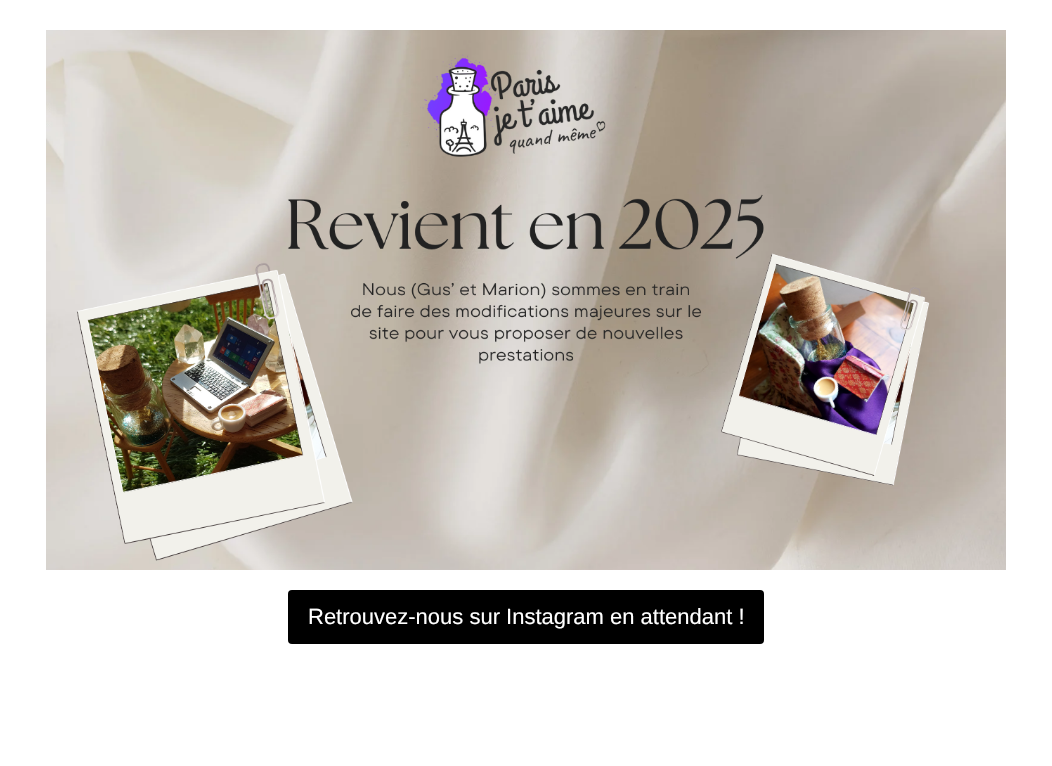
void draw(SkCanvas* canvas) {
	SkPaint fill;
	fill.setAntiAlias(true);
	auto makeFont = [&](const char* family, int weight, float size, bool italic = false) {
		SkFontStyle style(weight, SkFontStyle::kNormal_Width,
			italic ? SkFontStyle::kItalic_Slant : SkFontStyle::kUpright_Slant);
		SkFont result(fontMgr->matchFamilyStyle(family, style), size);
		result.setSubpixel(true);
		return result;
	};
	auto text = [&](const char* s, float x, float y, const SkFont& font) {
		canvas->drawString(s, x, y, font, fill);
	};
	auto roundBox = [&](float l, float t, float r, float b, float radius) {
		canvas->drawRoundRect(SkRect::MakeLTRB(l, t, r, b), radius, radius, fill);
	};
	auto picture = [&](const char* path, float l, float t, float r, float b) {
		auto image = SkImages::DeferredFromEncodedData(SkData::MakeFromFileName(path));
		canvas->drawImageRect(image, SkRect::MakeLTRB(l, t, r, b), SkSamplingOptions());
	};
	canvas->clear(0xFFFFFFFF);
	picture("image0.png", 46, 30, 1006, 570);
	fill.setColor(0xFF000000);
	roundBox(288, 590, 764, 644, 4);
	auto font1 = makeFont("Liberation Sans", 400, 22);
	fill.setColor(0xFFFFFFFF);
	text("Retrouvez-nous sur Instagram en attendant !", 308, 624, font1);
}
